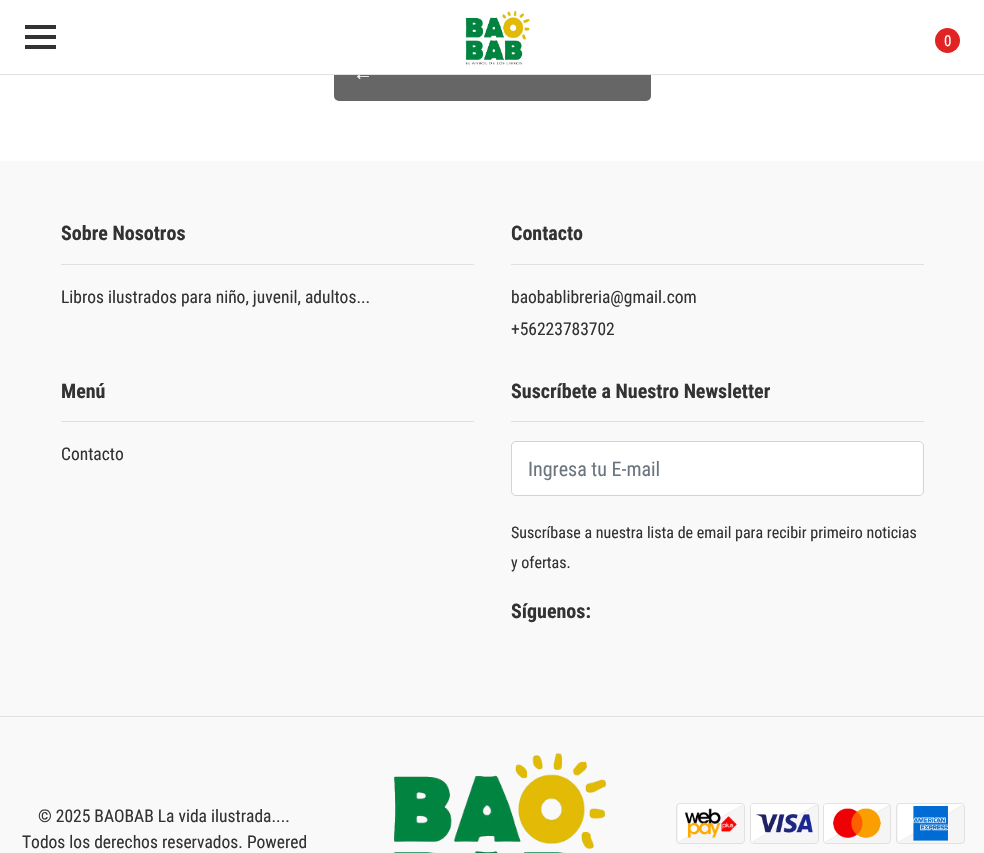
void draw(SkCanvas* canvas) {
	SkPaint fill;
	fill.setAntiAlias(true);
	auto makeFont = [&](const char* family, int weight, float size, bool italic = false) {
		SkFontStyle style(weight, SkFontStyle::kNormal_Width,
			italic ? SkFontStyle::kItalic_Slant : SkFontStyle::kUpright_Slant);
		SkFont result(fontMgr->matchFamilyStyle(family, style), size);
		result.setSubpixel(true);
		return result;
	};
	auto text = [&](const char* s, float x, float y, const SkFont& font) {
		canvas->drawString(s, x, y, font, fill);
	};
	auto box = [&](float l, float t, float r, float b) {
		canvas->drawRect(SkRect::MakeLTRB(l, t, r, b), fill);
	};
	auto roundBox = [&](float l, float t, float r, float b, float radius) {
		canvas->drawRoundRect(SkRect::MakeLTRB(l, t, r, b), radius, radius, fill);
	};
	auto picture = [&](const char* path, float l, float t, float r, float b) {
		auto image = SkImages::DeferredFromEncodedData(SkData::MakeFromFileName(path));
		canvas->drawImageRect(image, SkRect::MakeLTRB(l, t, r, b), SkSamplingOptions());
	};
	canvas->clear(0xFFFFFFFF);
	fill.setColor(0xFF333333);
	box(25, 25, 56, 29);
	box(25, 35, 56, 39);
	box(25, 45, 56, 49);
	fill.setColor(0xFF666666);
	roundBox(334, 46, 651, 101, 5);
	fill.setColor(0xFFFFFFFF);
	box(334, 46, 651, 74);
	picture("image0.png", 465, 10, 530, 65);
	fill.setColor(0xFFE22323);
	canvas->drawCircle(947.5f, 40.5f, 12.5f, fill);
	fill.setColor(0xFFF9F9F9);
	box(0, 161, 984, 853);
	fill.setColor(0xFFE0E0E0);
	box(61, 264, 474, 265);
	box(511, 264, 924, 265);
	box(61, 421, 474, 422);
	box(511, 421, 924, 422);
	fill.setColor(0xFFFFFFFF);
	canvas->drawRoundRect(SkRect::MakeLTRB(511.5f, 441.5f, 923.5f, 495.5f), 4.5f, 4.5f, fill);
	fill.setStyle(SkPaint::kStroke_Style);
	fill.setStrokeWidth(1);
	fill.setColor(0xFFCED4DA);
	canvas->drawRoundRect(SkRect::MakeLTRB(511.5f, 441.5f, 923.5f, 495.5f), 4.5f, 4.5f, fill);
	fill.setStyle(SkPaint::kFill_Style);
	fill.setColor(0xFFE0E0E0);
	box(0, 716, 984, 717);
	picture("image1.png", 394, 753, 606, 853);
	fill.setColor(0xFFF5F5F5);
	canvas->drawRoundRect(SkRect::MakeLTRB(676.5f, 803.5f, 744.5f, 843.5f), 3.5f, 3.5f, fill);
	fill.setStyle(SkPaint::kStroke_Style);
	fill.setColor(0xFFE1E1E1);
	canvas->drawRoundRect(SkRect::MakeLTRB(676.5f, 803.5f, 744.5f, 843.5f), 3.5f, 3.5f, fill);
	fill.setStyle(SkPaint::kFill_Style);
	fill.setColor(0xFFFFFFFF);
	canvas->drawPath(SkPathBuilder().moveTo(680, 804).lineTo(742, 804).lineTo(744, 805).lineTo(679, 843).cubicTo(679, 842, 678, 841, 678, 840).lineTo(678, 806).cubicTo(678, 805, 679, 804, 680, 804).close().detach(), fill);
	canvas->save();
	canvas->clipPath(SkPathBuilder().moveTo(680.5f, 804).lineTo(741.5f, 804).cubicTo(743, 804, 744, 805, 744, 806.5f).lineTo(744, 840.5f).cubicTo(744, 842, 743, 843, 741.5f, 843).lineTo(680.5f, 843).cubicTo(679, 843, 678, 842, 678, 840.5f).lineTo(678, 806.5f).cubicTo(678, 805, 679, 804, 680.5f, 804).close().detach(), true);
	fill.setStyle(SkPaint::kStroke_Style);
	fill.setStrokeWidth(1.2f);
	fill.setColor(0xFFEEEEEE);
	canvas->drawPath(SkPathBuilder().moveTo(700.5f, 687).lineTo(762, 794).lineTo(655, 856).lineTo(593, 749).close().detach(), fill);
	canvas->restore();
	picture("image2.png", 684, 808, 737, 838);
	fill.setStyle(SkPaint::kFill_Style);
	fill.setColor(0xFFF5F5F5);
	canvas->drawRoundRect(SkRect::MakeLTRB(750.5f, 803.5f, 818.5f, 843.5f), 3.5f, 3.5f, fill);
	fill.setStyle(SkPaint::kStroke_Style);
	fill.setStrokeWidth(1);
	fill.setColor(0xFFE1E1E1);
	canvas->drawRoundRect(SkRect::MakeLTRB(750.5f, 803.5f, 818.5f, 843.5f), 3.5f, 3.5f, fill);
	fill.setStyle(SkPaint::kFill_Style);
	fill.setColor(0xFFFFFFFF);
	canvas->drawPath(SkPathBuilder().moveTo(754, 804).lineTo(816, 804).lineTo(817, 805).lineTo(752, 843).cubicTo(752, 842, 751, 841, 751, 840).lineTo(751, 806).cubicTo(751, 805, 752, 804, 754, 804).close().detach(), fill);
	canvas->save();
	canvas->clipPath(SkPathBuilder().moveTo(753.5f, 804).lineTo(815.5f, 804).cubicTo(817, 804, 818, 805, 818, 806.5f).lineTo(818, 840.5f).cubicTo(818, 842, 817, 843, 815.5f, 843).lineTo(753.5f, 843).cubicTo(752, 843, 751, 842, 751, 840.5f).lineTo(751, 806.5f).cubicTo(751, 805, 752, 804, 753.5f, 804).close().detach(), true);
	fill.setStyle(SkPaint::kStroke_Style);
	fill.setStrokeWidth(1.2f);
	fill.setColor(0xFFEEEEEE);
	canvas->drawPath(SkPathBuilder().moveTo(773.5f, 687).lineTo(835.5f, 794).lineTo(728.5f, 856).lineTo(666.5f, 749).close().detach(), fill);
	canvas->restore();
	picture("image3.png", 756, 814, 813, 833);
	fill.setStyle(SkPaint::kFill_Style);
	fill.setColor(0xFFF5F5F5);
	canvas->drawRoundRect(SkRect::MakeLTRB(823.5f, 803.5f, 890.5f, 843.5f), 3.5f, 3.5f, fill);
	fill.setStyle(SkPaint::kStroke_Style);
	fill.setStrokeWidth(1);
	fill.setColor(0xFFE1E1E1);
	canvas->drawRoundRect(SkRect::MakeLTRB(823.5f, 803.5f, 890.5f, 843.5f), 3.5f, 3.5f, fill);
	fill.setStyle(SkPaint::kFill_Style);
	fill.setColor(0xFFFFFFFF);
	canvas->drawPath(SkPathBuilder().moveTo(826, 804).lineTo(888, 804).lineTo(890, 806).lineTo(826, 843).cubicTo(825, 842, 824, 842, 824, 840).lineTo(824, 806).cubicTo(824, 805, 825, 804, 826, 804).close().detach(), fill);
	canvas->save();
	canvas->clipPath(SkPathBuilder().moveTo(826.5f, 804).lineTo(887.5f, 804).cubicTo(889, 804, 890, 805, 890, 806.5f).lineTo(890, 840.5f).cubicTo(890, 842, 889, 843, 887.5f, 843).lineTo(826.5f, 843).cubicTo(825, 843, 824, 842, 824, 840.5f).lineTo(824, 806.5f).cubicTo(824, 805, 825, 804, 826.5f, 804).close().detach(), true);
	fill.setStyle(SkPaint::kStroke_Style);
	fill.setStrokeWidth(1.2f);
	fill.setColor(0xFFEEEEEE);
	canvas->drawPath(SkPathBuilder().moveTo(847, 687).lineTo(909, 794).lineTo(801.5f, 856).lineTo(740, 749).close().detach(), fill);
	canvas->restore();
	picture("image4.png", 833, 808, 881, 838);
	fill.setStyle(SkPaint::kFill_Style);
	fill.setColor(0xFFF5F5F5);
	canvas->drawRoundRect(SkRect::MakeLTRB(896.5f, 803.5f, 964.5f, 843.5f), 3.5f, 3.5f, fill);
	fill.setStyle(SkPaint::kStroke_Style);
	fill.setStrokeWidth(1);
	fill.setColor(0xFFE1E1E1);
	canvas->drawRoundRect(SkRect::MakeLTRB(896.5f, 803.5f, 964.5f, 843.5f), 3.5f, 3.5f, fill);
	fill.setStyle(SkPaint::kFill_Style);
	fill.setColor(0xFFFFFFFF);
	canvas->drawPath(SkPathBuilder().moveTo(900, 804).lineTo(962, 804).lineTo(964, 805).lineTo(899, 843).cubicTo(899, 842, 898, 841, 898, 840).lineTo(898, 806).cubicTo(898, 805, 899, 804, 900, 804).close().detach(), fill);
	canvas->save();
	canvas->clipPath(SkPathBuilder().moveTo(900.5f, 804).lineTo(961.5f, 804).cubicTo(963, 804, 964, 805, 964, 806.5f).lineTo(964, 840.5f).cubicTo(964, 842, 963, 843, 961.5f, 843).lineTo(900.5f, 843).cubicTo(899, 843, 898, 842, 898, 840.5f).lineTo(898, 806.5f).cubicTo(898, 805, 899, 804, 900.5f, 804).close().detach(), true);
	fill.setStyle(SkPaint::kStroke_Style);
	fill.setStrokeWidth(1.2f);
	fill.setColor(0xFFEEEEEE);
	canvas->drawPath(SkPathBuilder().moveTo(920.5f, 687).lineTo(982, 794).lineTo(875, 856).lineTo(813, 749).close().detach(), fill);
	canvas->restore();
	picture("image5.png", 913, 806, 948, 841);
	auto font1 = makeFont("Roboto Condensed", 400, 15);
	fill.setStyle(SkPaint::kFill_Style);
	fill.setColor(0xFFFFFFFF);
	text("0", 944, 46, font1);
	auto font2 = makeFont("Liberation Serif", 400, 20);
	text("←", 353, 80, font2);
	fill.setColor(0xFFE1E1E1);
	box(0, 74, 984, 75);
	auto font3 = makeFont("Roboto Condensed", 700, 20);
	fill.setColor(0xFF333333);
	text("Sobre Nosotros", 61, 240, font3);
	auto font4 = makeFont("Roboto Condensed", 400, 17.5f);
	text("Libros ilustrados para niño, juvenil, adultos...", 61, 303, font4);
	text("Contacto", 511, 240, font3);
	text("baobablibreria@gmail.com", 511, 303, font4);
	text("+56223783702", 511, 335, font4);
	text("Menú", 61, 398, font3);
	text("Contacto", 61, 460, font4);
	text("Suscríbete a Nuestro Newsletter", 511, 398, font3);
	auto font5 = makeFont("Roboto Condensed", 400, 20);
	fill.setColor(0xFF6C757D);
	text("Ingresa tu E-mail", 528, 476, font5);
	auto font6 = makeFont("Roboto Condensed", 400, 16);
	fill.setColor(0xFF333333);
	text("Suscríbase a nuestra lista de email para recibir primeiro noticias", 511, 538, font6);
	text("y ofertas.", 511, 568, font6);
	text("Síguenos:", 511, 618, font3);
	text("© 2025 BAOBAB La vida ilustrada....", 38, 822, font4);
	text("Todos los derechos reservados. Powered", 22, 848, font4);
}
